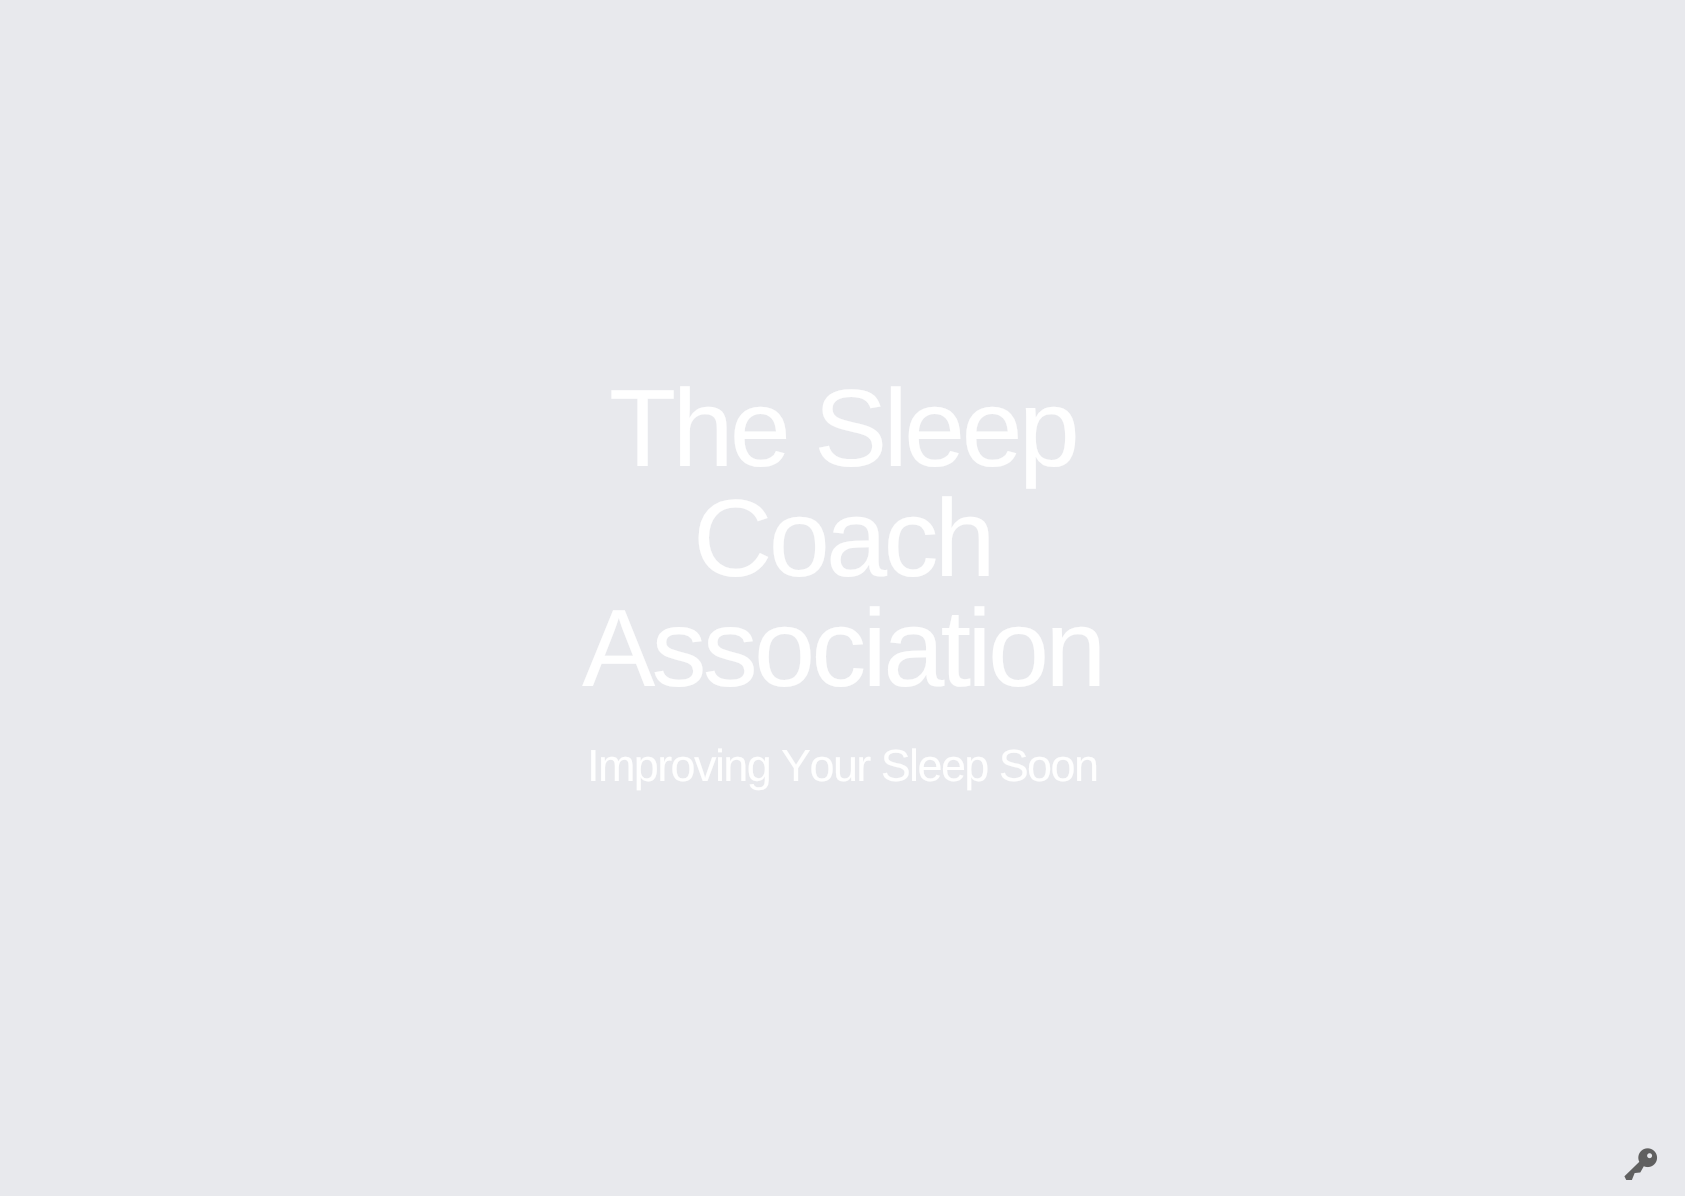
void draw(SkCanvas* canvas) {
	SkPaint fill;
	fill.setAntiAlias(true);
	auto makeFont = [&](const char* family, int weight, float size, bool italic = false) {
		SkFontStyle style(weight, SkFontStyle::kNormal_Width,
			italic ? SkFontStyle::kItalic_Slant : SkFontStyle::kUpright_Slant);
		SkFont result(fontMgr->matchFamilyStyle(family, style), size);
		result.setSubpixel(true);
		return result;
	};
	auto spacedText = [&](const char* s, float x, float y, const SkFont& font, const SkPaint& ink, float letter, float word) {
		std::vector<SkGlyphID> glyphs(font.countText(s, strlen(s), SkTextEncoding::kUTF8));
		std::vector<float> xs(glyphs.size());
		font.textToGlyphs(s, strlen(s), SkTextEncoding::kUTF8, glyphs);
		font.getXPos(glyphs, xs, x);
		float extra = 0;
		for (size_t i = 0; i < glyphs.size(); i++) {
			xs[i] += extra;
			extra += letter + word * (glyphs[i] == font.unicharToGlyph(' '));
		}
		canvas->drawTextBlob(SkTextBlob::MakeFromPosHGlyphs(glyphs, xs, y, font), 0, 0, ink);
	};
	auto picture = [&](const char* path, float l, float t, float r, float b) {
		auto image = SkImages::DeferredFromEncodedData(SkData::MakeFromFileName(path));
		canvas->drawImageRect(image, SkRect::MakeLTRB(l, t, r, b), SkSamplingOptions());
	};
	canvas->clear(0xFFE8E9ED);
	picture("image0.png", 1624, 1148, 1658, 1180);
	auto font1 = makeFont("Liberation Sans", 400, 110);
	fill.setColor(0xFFFFFFFF);
	spacedText("The Sleep", 609, 466, font1, fill, -3.8f, 0);
	spacedText("Coach", 693, 576, font1, fill, -3.8f, 0);
	spacedText("Association", 582, 686, font1, fill, -3.8f, 0);
	auto font2 = makeFont("Liberation Sans", 400, 45);
	spacedText("Improving Your Sleep Soon", 587, 781, font2, fill, -1.6f, 0);
}
